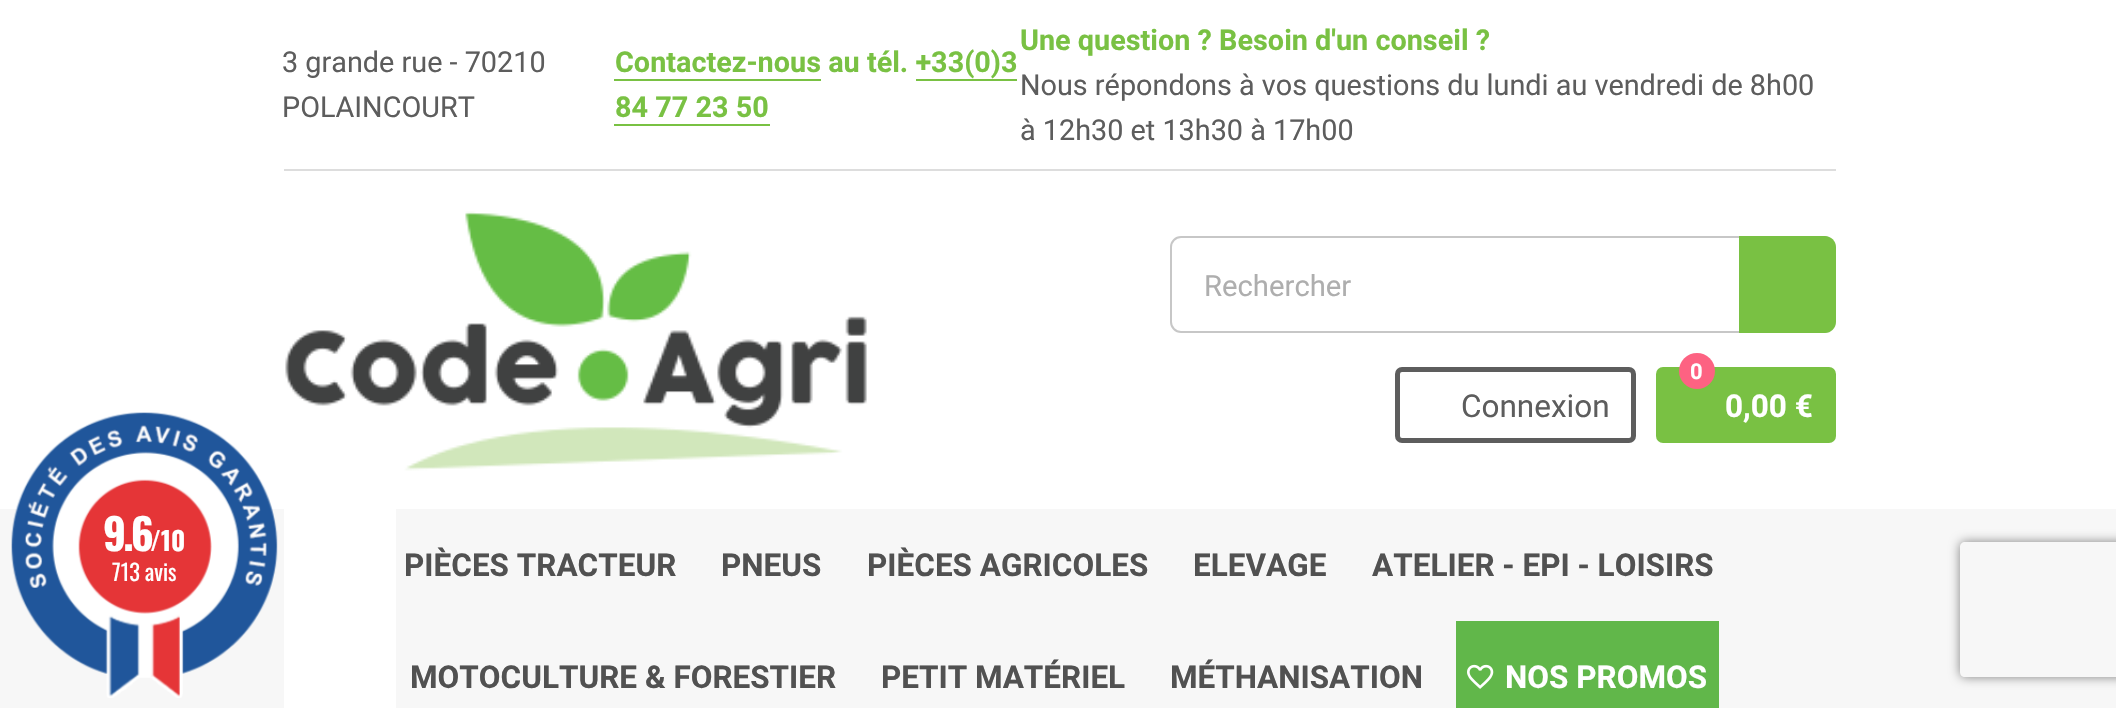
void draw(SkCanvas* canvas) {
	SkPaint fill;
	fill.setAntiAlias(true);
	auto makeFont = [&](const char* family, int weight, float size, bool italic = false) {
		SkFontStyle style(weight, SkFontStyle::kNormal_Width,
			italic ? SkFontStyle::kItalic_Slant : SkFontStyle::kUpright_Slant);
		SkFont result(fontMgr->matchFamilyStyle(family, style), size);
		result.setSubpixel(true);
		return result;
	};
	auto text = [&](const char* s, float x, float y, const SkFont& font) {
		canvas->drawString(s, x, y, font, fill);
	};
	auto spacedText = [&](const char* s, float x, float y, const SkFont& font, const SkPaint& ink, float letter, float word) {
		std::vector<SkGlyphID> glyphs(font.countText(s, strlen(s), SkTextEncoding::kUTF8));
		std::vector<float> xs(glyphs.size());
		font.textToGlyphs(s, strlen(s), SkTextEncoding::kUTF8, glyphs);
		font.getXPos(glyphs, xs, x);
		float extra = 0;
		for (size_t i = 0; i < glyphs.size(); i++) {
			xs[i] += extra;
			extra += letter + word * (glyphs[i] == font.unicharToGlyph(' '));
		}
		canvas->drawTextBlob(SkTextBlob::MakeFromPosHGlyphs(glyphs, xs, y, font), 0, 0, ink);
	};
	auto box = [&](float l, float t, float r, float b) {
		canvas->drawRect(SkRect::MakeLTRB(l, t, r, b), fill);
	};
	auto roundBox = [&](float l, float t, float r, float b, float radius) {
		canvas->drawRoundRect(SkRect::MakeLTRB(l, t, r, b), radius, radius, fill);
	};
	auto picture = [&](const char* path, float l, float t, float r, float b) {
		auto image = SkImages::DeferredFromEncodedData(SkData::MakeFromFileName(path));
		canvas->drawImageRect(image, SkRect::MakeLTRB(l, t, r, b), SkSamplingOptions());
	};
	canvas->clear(0xFFFFFFFF);
	fill.setColor(0xFFF7F7F7);
	box(0, 509, 2116, 708);
	picture("image0.png", 11, 412, 278, 698);
	fill.setColor(0xFFDDDDDD);
	box(284, 169, 1836, 171);
	fill.setColor(0xFF79C143);
	box(614, 79, 821, 81);
	box(916, 79, 1017, 81);
	box(614, 124, 770, 126);
	picture("image1.png", 285, 211, 867, 471);
	fill.setStyle(SkPaint::kStroke_Style);
	fill.setStrokeWidth(2);
	fill.setColor(0xFFC7C7C7);
	canvas->drawRoundRect(SkRect::MakeLTRB(1171, 237, 1833, 332), 10, 10, fill);
	fill.setStyle(SkPaint::kFill_Style);
	fill.setColor(0xFF79C143);
	canvas->drawPath(SkPathBuilder().moveTo(1739, 236).lineTo(1825, 236).cubicTo(1831, 236, 1836, 241, 1836, 247).lineTo(1836, 322).cubicTo(1836, 328, 1831, 333, 1825, 333).lineTo(1739, 333).close().detach(), fill);
	fill.setStyle(SkPaint::kStroke_Style);
	fill.setStrokeWidth(5);
	fill.setColor(0xFF5D5D5D);
	canvas->drawRoundRect(SkRect::MakeLTRB(1397.5f, 369.5f, 1633.5f, 440.5f), 4.5f, 4.5f, fill);
	fill.setStyle(SkPaint::kFill_Style);
	fill.setColor(0xFF79C143);
	roundBox(1656, 367, 1836, 443, 7);
	fill.setColor(0xFFFD6282);
	canvas->drawCircle(1697, 371, 18, fill);
	fill.setColor(0xFFFFFFFF);
	box(284, 509, 396, 708);
	fill.setColor(0xFF61B74A);
	box(1456, 621, 1719, 708);
	picture("image2.png", 1467, 664, 1494, 689);
	canvas->save();
	canvas->clipPath(SkPathBuilder(SkPathFillType::kEvenOdd).moveTo(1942, 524).lineTo(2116, 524).lineTo(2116, 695).lineTo(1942, 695).close().moveTo(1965, 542).lineTo(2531, 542).cubicTo(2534, 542, 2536, 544, 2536, 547).lineTo(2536, 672).cubicTo(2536, 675, 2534, 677, 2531, 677).lineTo(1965, 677).cubicTo(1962, 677, 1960, 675, 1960, 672).lineTo(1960, 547).cubicTo(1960, 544, 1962, 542, 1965, 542).close().detach(), true);
	fill.setColor(0xFF808080);
	fill.setMaskFilter(SkMaskFilter::MakeBlur(kNormal_SkBlurStyle, 5.5f));
	canvas->drawRoundRect(SkRect::MakeLTRB(1960, 542, 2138, 677), 5, 5, fill);
	fill.setMaskFilter(nullptr);
	canvas->restore();
	auto font1 = makeFont("Oswald", 700, 43);
	fill.setColor(0xFFFFFFFF);
	spacedText("9.6", 103, 551, font1, fill, -3, 0);
	auto font2 = makeFont("Oswald", 700, 26);
	text("/10", 150, 551, font2);
	auto font3 = makeFont("Oswald", 400, 22.5f);
	text("713 avis", 112, 581, font3);
	auto font4 = makeFont("Roboto", 400, 28.8f);
	fill.setColor(0xFF5D5D5D);
	text("3 grande rue - 70210", 282, 72, font4);
	text("POLAINCOURT", 282, 117, font4);
	auto font5 = makeFont("Roboto", 700, 28.8f);
	fill.setColor(0xFF79C143);
	text("Contactez-nous au tél. +33(0)3", 615, 72, font5);
	text("84 77 23 50", 615, 117, font5);
	text("Une question ? Besoin d'un conseil ?", 1020, 50, font5);
	fill.setColor(0xFF5D5D5D);
	text("Nous répondons à vos questions du lundi au vendredi de 8h00", 1020, 95, font4);
	text("à 12h30 et 13h30 à 17h00", 1020, 140, font4);
	auto font6 = makeFont("Roboto", 400, 29.25f);
	fill.setColor(0xFFAEAEAE);
	text("Rechercher", 1204, 296, font6);
	auto font7 = makeFont("Roboto", 400, 31.5f);
	fill.setColor(0xFF5D5D5D);
	text("Connexion", 1461, 417, font7);
	auto font8 = makeFont("Roboto", 700, 22);
	fill.setColor(0xFFFFFFFF);
	text("0", 1690, 379, font8);
	auto font9 = makeFont("Roboto", 700, 31.5f);
	text("0,00 €", 1725, 417, font9);
	fill.setColor(0xFF515151);
	text("PIÈCES TRACTEUR", 404, 576, font9);
	text("PNEUS", 721, 576, font9);
	text("PIÈCES AGRICOLES", 867, 576, font9);
	text("ELEVAGE", 1193, 576, font9);
	text("ATELIER - EPI - LOISIRS", 1372, 576, font9);
	text("MOTOCULTURE & FORESTIER", 410, 688, font9);
	text("PETIT MATÉRIEL", 881, 688, font9);
	text("MÉTHANISATION", 1170, 688, font9);
	fill.setColor(0xFFFFFFFF);
	text("NOS PROMOS", 1505, 688, font9);
}
